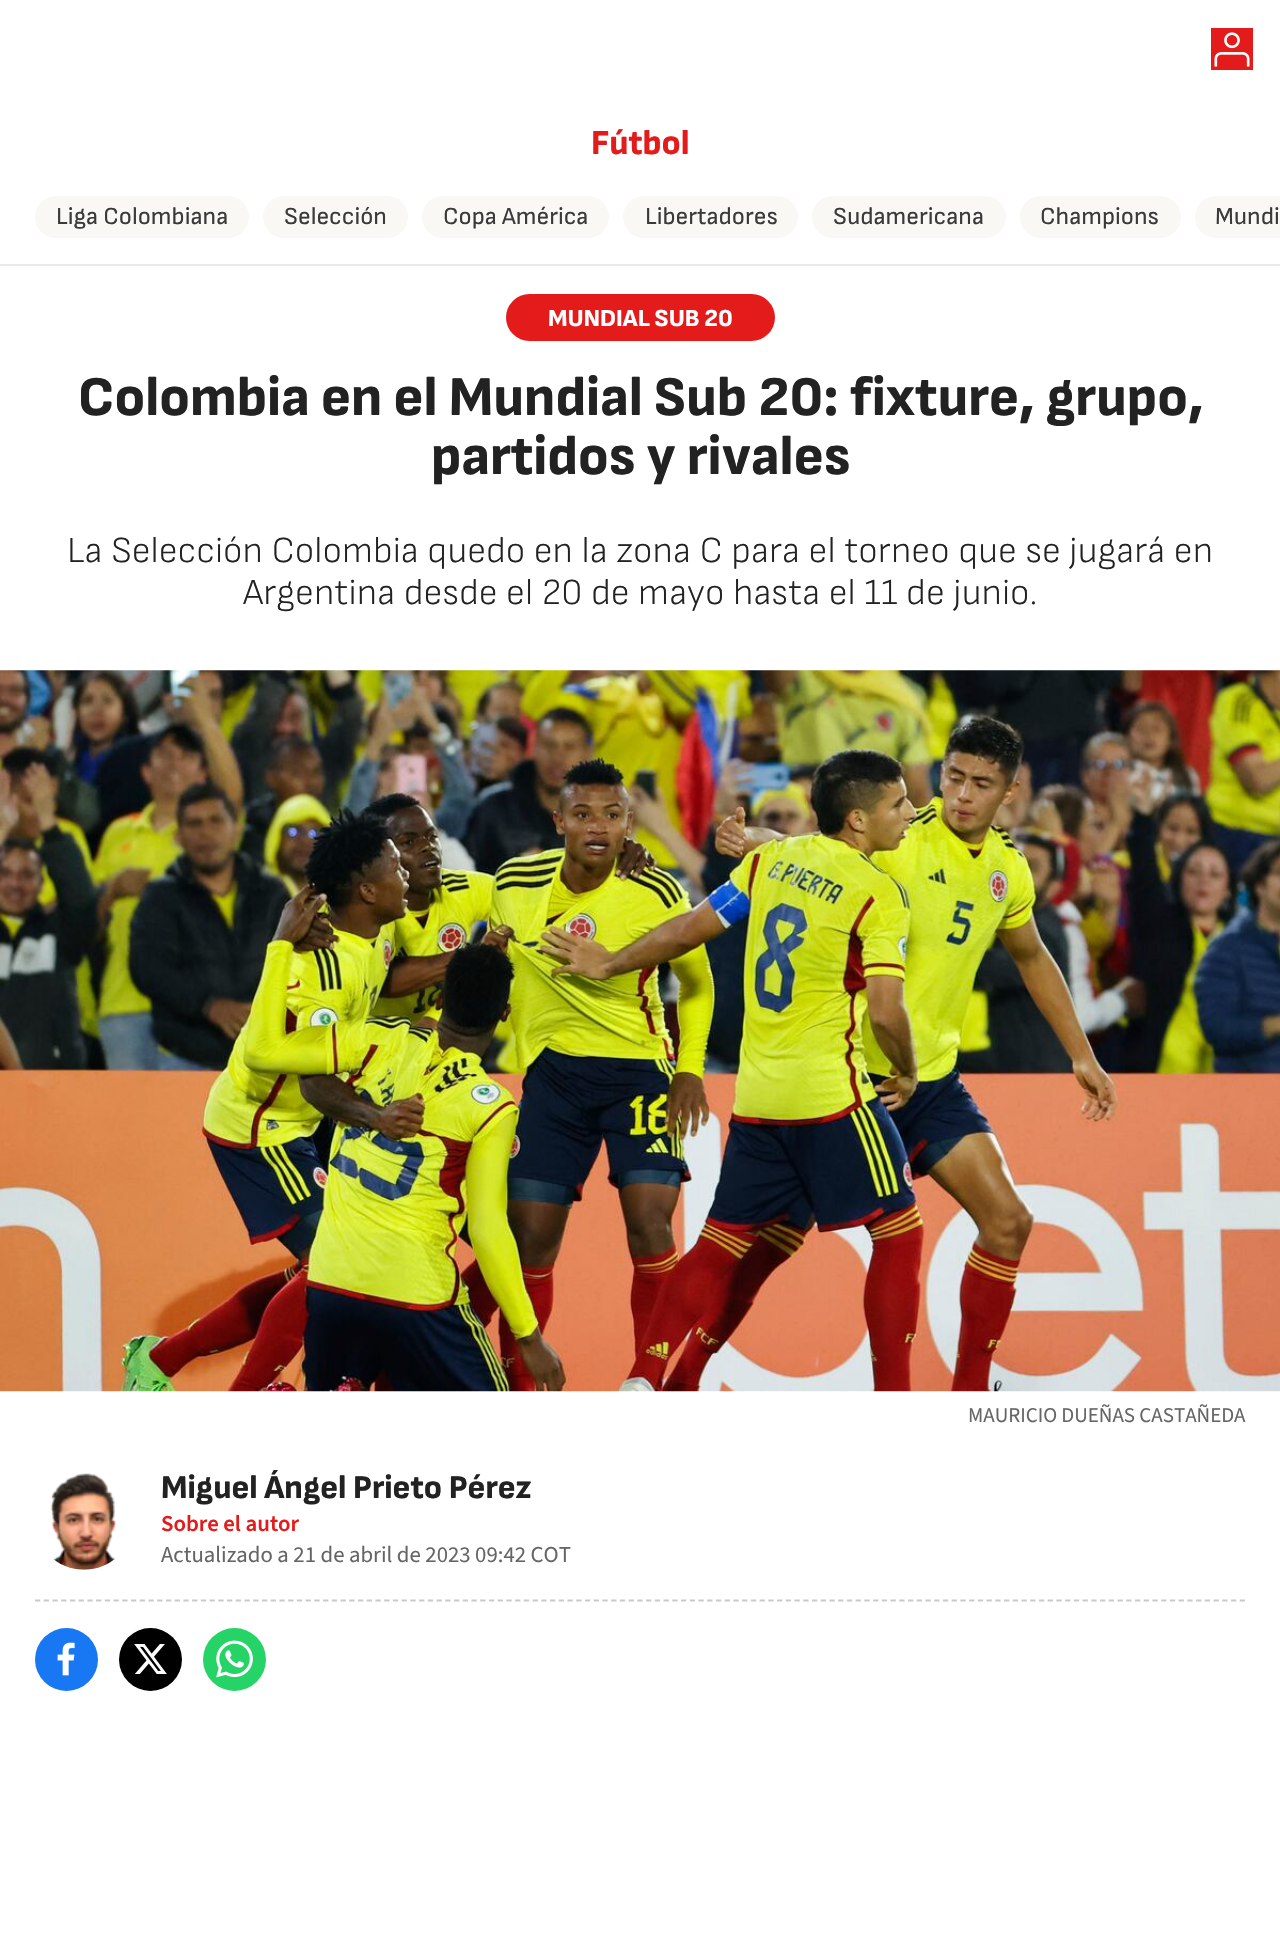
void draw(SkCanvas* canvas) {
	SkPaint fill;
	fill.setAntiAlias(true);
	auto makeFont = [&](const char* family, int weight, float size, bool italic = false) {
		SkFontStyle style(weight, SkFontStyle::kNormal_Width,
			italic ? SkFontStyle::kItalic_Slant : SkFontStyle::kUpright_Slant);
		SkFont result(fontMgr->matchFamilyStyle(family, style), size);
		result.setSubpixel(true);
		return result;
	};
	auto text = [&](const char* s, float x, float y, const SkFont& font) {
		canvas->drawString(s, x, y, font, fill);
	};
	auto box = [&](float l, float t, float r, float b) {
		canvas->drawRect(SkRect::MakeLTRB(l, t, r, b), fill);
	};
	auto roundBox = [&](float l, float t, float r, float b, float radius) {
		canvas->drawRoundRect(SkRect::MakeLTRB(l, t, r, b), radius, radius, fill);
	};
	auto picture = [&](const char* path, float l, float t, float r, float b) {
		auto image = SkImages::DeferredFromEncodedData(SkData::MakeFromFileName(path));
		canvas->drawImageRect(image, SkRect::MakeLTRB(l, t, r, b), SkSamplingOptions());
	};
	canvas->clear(0xFFFFFFFF);
	fill.setColor(0xFFE41B1B);
	box(1211, 28, 1253, 70);
	picture("image0.png", 1214, 32, 1250, 67);
	fill.setColor(0xFFFAF8F4);
	roundBox(35, 196, 249, 238, 21);
	roundBox(263, 196, 408, 238, 21);
	roundBox(422, 196, 609, 238, 21);
	roundBox(623, 196, 798, 238, 21);
	roundBox(812, 196, 1006, 238, 21);
	roundBox(1020, 196, 1181, 238, 21);
	canvas->drawPath(SkPathBuilder().moveTo(1216, 196).lineTo(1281, 196).lineTo(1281, 238).lineTo(1216, 238).cubicTo(1204.5f, 238, 1195, 228.5f, 1195, 217).cubicTo(1195, 205.5f, 1204.5f, 196, 1216, 196).close().detach(), fill);
	fill.setColor(0xFFE9E9E9);
	box(0, 264, 1280, 266);
	fill.setColor(0xFFE41B1B);
	roundBox(506, 294, 775, 341, 23.5f);
	picture("image1.png", 0, 670, 1280, 1392);
	picture("image2.png", 50, 1473, 116, 1570);
	fill.setStyle(SkPaint::kStroke_Style);
	fill.setStrokeWidth(1.8f);
	fill.setColor(0xFFC9C9C9);
	fill.setPathEffect(SkDashPathEffect::Make({{5.25f, 3.48f}}, 0));
	canvas->drawPath(SkPathBuilder().moveTo(35, 1600.5f).lineTo(1246, 1600.5f).detach(), fill);
	fill.setPathEffect(nullptr);
	fill.setStyle(SkPaint::kFill_Style);
	fill.setColor(0xFF1877F2);
	canvas->drawCircle(66.5f, 1659.5f, 31.5f, fill);
	picture("image3.png", 57, 1642, 75, 1676);
	fill.setColor(0xFF000000);
	canvas->drawCircle(150.5f, 1659.5f, 31.5f, fill);
	picture("image4.png", 134, 1644, 167, 1674);
	fill.setColor(0xFF25D366);
	canvas->drawCircle(234.5f, 1659.5f, 31.5f, fill);
	picture("image5.png", 216, 1640, 253, 1678);
	auto font1 = makeFont("Sofia Sans", 800, 35);
	fill.setColor(0xFFE41B1B);
	text("Fútbol", 591, 154, font1);
	auto font2 = makeFont("Sofia Sans", 400, 24.5f);
	fill.setColor(0xFF3A3A3A);
	text("Liga Colombiana", 56, 224, font2);
	text("Selección", 284, 224, font2);
	text("Copa América", 443, 224, font2);
	text("Libertadores", 645, 224, font2);
	text("Sudamericana", 833, 224, font2);
	text("Champions", 1040, 224, font2);
	text("Mundi", 1215, 224, font2);
	auto font3 = makeFont("Sofia Sans", 800, 24.5f);
	fill.setColor(0xFFFFFFFF);
	text("MUNDIAL SUB 20", 548, 326, font3);
	auto font4 = makeFont("Sofia Sans", 800, 56);
	fill.setColor(0xFF222222);
	text("Colombia en el Mundial Sub 20: fixture, grupo,", 78, 415, font4);
	text("partidos y rivales", 431, 474, font4);
	auto font5 = makeFont("Sofia Sans", 300, 36.75f);
	text("La Selección Colombia quedo en la zona C para el torneo que se jugará en", 67, 562, font5);
	text("Argentina desde el 20 de mayo hasta el 11 de junio.", 243, 604, font5);
	auto font6 = makeFont("Source Sans 3", 200, 21);
	fill.setColor(0xFF656565);
	text("MAURICIO DUEÑAS CASTAÑEDA", 968, 1422, font6);
	auto font7 = makeFont("Sofia Sans", 800, 33.25f);
	fill.setColor(0xFF222222);
	text("Miguel Ángel Prieto Pérez", 161, 1498, font7);
	auto font8 = makeFont("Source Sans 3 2", 200, 22.75f);
	fill.setColor(0xFFE41B1B);
	text("Sobre el autor", 161, 1531, font8);
	auto font9 = makeFont("Source Sans 3", 200, 22.75f);
	fill.setColor(0xFF656565);
	text("Actualizado a 21 de abril de 2023 09:42 COT", 161, 1562, font9);
}
